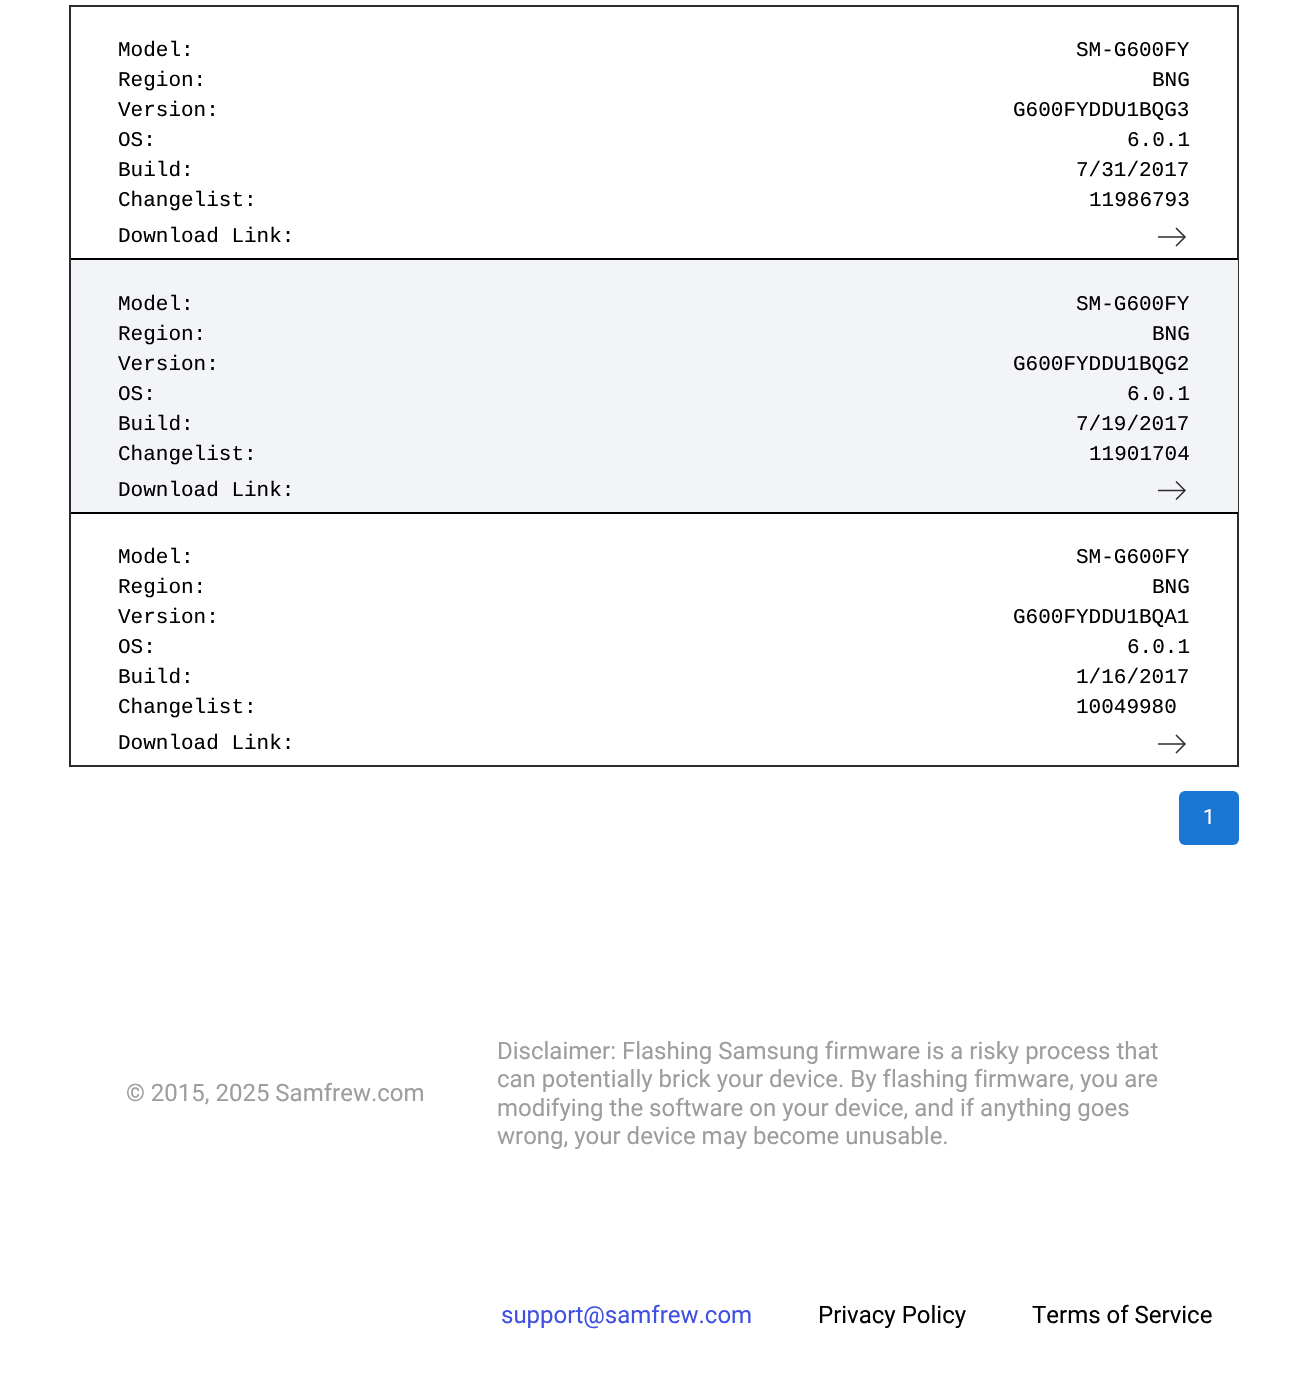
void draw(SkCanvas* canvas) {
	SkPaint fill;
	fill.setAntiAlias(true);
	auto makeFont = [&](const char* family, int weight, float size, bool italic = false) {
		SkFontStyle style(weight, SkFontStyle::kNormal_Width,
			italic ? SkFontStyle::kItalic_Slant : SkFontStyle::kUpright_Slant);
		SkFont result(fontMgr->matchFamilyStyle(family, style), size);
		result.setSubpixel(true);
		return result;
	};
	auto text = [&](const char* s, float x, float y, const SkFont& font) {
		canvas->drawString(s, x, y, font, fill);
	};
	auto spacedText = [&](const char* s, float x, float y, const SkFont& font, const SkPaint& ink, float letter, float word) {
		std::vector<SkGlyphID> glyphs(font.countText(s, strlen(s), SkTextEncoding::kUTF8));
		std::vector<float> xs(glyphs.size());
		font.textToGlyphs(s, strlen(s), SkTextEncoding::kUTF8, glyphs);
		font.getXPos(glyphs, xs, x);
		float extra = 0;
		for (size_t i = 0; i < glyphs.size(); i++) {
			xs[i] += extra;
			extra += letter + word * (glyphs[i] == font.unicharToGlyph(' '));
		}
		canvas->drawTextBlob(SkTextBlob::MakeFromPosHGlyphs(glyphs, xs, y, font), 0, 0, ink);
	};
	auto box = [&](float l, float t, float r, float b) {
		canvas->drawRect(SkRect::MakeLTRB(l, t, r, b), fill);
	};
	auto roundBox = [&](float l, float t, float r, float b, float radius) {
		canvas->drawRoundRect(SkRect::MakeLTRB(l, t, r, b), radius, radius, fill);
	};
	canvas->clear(0xFFFFFFFF);
	fill.setStyle(SkPaint::kStroke_Style);
	fill.setStrokeWidth(2);
	fill.setColor(0xFF2C2C2C);
	canvas->drawRect(SkRect::MakeLTRB(70, 6, 1238, 766), fill);
	fill.setStyle(SkPaint::kFill_Style);
	fill.setColor(0xFF616161);
	box(1158, 236, 1185, 238);
	fill.setStyle(SkPaint::kStroke_Style);
	fill.setStrokeWidth(1.5f);
	fill.setColor(0xFF2C2C2C);
	canvas->drawPath(SkPathBuilder().moveTo(1176, 246).lineTo(1185, 237).lineTo(1176, 228).detach(), fill);
	fill.setStyle(SkPaint::kFill_Style);
	fill.setColor(0xFF000000);
	box(71, 258, 1238, 260);
	fill.setColor(0xFFF3F4F8);
	box(71, 260, 1238, 512);
	fill.setStyle(SkPaint::kStroke_Style);
	fill.setColor(0xFF2C2C2C);
	canvas->drawPath(SkPathBuilder().moveTo(1158, 490.5f).lineTo(1185, 490.5f).moveTo(1176, 499.5f).lineTo(1185, 490.5f).lineTo(1176, 481.5f).detach(), fill);
	fill.setStyle(SkPaint::kFill_Style);
	fill.setColor(0xFF000000);
	box(71, 512, 1238, 514);
	fill.setColor(0xFF616161);
	box(1158, 743, 1185, 745);
	fill.setStyle(SkPaint::kStroke_Style);
	fill.setColor(0xFF2C2C2C);
	canvas->drawPath(SkPathBuilder().moveTo(1176, 753).lineTo(1185, 744).lineTo(1176, 735).detach(), fill);
	fill.setStyle(SkPaint::kFill_Style);
	fill.setColor(0xFF1976D2);
	roundBox(1179, 791, 1239, 845, 6);
	auto font1 = makeFont("Liberation Mono", 400, 21);
	fill.setColor(0xFF000000);
	text("Model:", 118, 56, font1);
	text("SM-G600FY", 1076, 56, font1);
	text("Region:", 118, 86, font1);
	text("BNG", 1152, 86, font1);
	text("Version:", 118, 116, font1);
	text("G600FYDDU1BQG3", 1013, 116, font1);
	text("OS:", 118, 146, font1);
	text("6.0.1", 1127, 146, font1);
	text("Build:", 118, 176, font1);
	text("7/31/2017", 1076, 176, font1);
	text("Changelist:", 118, 206, font1);
	text("11986793", 1089, 206, font1);
	text("Download Link:", 118, 242, font1);
	text("Model:", 118, 310, font1);
	text("SM-G600FY", 1076, 310, font1);
	text("Region:", 118, 340, font1);
	text("BNG", 1152, 340, font1);
	text("Version:", 118, 370, font1);
	text("G600FYDDU1BQG2", 1013, 370, font1);
	text("OS:", 118, 400, font1);
	text("6.0.1", 1127, 400, font1);
	text("Build:", 118, 430, font1);
	text("7/19/2017", 1076, 430, font1);
	text("Changelist:", 118, 460, font1);
	text("11901704", 1089, 460, font1);
	text("Download Link:", 118, 496, font1);
	text("Model:", 118, 563, font1);
	text("SM-G600FY", 1076, 563, font1);
	text("Region:", 118, 593, font1);
	text("BNG", 1152, 593, font1);
	text("Version:", 118, 623, font1);
	text("G600FYDDU1BQA1", 1013, 623, font1);
	text("OS:", 118, 653, font1);
	text("6.0.1", 1127, 653, font1);
	text("Build:", 118, 683, font1);
	text("1/16/2017", 1076, 683, font1);
	text("Changelist:", 118, 713, font1);
	text("10049980", 1076, 713, font1);
	text("Download Link:", 118, 749, font1);
	auto font2 = makeFont("Roboto", 400, 21);
	fill.setColor(0xFFFFFFFF);
	spacedText("1", 1203, 824, font2, fill, 1, 0);
	auto font3 = makeFont("Roboto", 400, 24);
	fill.setColor(0xFF9D9D9D);
	text("© 2015, 2025 Samfrew.com", 126, 1101, font3);
	text("Disclaimer: Flashing Samsung firmware is a risky process that", 497, 1059, font3);
	text("can potentially brick your device. By flashing firmware, you are", 497, 1087, font3);
	text("modifying the software on your device, and if anything goes", 497, 1116, font3);
	text("wrong, your device may become unusable.", 497, 1144, font3);
	fill.setColor(0xFF4051E1);
	text("support@samfrew.com", 501, 1323, font3);
	fill.setColor(0xFF000000);
	text("Privacy Policy", 818, 1323, font3);
	text("Terms of Service", 1032, 1323, font3);
}
